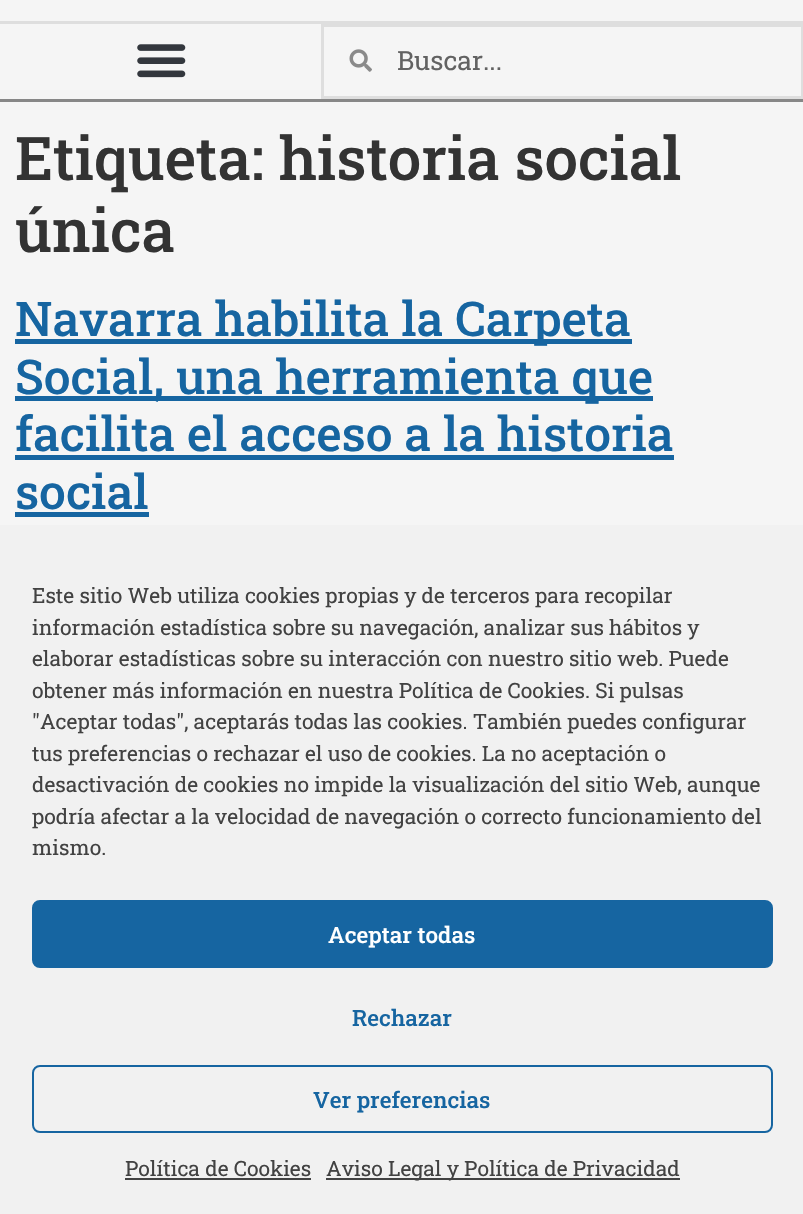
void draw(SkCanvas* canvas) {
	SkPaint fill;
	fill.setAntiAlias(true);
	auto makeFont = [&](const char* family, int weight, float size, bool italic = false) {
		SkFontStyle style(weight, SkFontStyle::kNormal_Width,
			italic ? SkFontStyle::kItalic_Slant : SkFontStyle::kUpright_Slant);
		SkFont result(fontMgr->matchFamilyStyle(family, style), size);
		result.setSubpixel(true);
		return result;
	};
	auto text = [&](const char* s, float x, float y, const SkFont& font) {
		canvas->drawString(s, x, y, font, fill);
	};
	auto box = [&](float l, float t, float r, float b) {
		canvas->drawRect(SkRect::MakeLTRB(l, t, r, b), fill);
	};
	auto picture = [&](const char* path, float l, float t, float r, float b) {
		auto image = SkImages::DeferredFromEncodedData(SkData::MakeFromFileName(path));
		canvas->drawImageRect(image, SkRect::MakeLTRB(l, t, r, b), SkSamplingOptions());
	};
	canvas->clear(0xFFF5F5F5);
	fill.setColor(0xFF878787);
	box(0, 99, 803, 102);
	fill.setColor(0xFFDEDEDE);
	box(0, 21, 803, 24);
	picture("image0.png", 137, 44, 186, 78);
	fill.setStyle(SkPaint::kStroke_Style);
	fill.setStrokeWidth(3);
	canvas->drawRect(SkRect::MakeLTRB(322.5f, 25.5f, 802.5f, 97.5f), fill);
	picture("image1.png", 349, 49, 372, 72);
	fill.setStyle(SkPaint::kFill_Style);
	fill.setColor(0xFF1665A1);
	box(15, 339, 632, 344);
	box(15, 396, 653, 401);
	box(15, 455, 674, 460);
	box(15, 512, 149, 517);
	fill.setColor(0xFFF1F1F1);
	box(0, 525, 803, 1214);
	fill.setColor(0xFF1665A1);
	canvas->drawRoundRect(SkRect::MakeLTRB(33, 901, 772, 967), 7, 7, fill);
	fill.setStyle(SkPaint::kStroke_Style);
	fill.setStrokeWidth(2);
	canvas->drawRoundRect(SkRect::MakeLTRB(33, 901, 772, 967), 7, 7, fill);
	canvas->drawRoundRect(SkRect::MakeLTRB(33, 1066, 772, 1132), 7, 7, fill);
	fill.setStyle(SkPaint::kFill_Style);
	fill.setColor(0xFF424242);
	box(125, 1178, 311, 1180);
	box(326, 1178, 680, 1180);
	auto font1 = makeFont("Roboto Slab", 400, 26.5f);
	fill.setColor(0xFF626262);
	text("Buscar...", 397, 70, font1);
	auto font2 = makeFont("Roboto Slab", 500, 60);
	fill.setColor(0xFF333333);
	text("Etiqueta: historia social", 15, 180, font2);
	text("única", 15, 252, font2);
	auto font3 = makeFont("Roboto Slab", 500, 48);
	fill.setColor(0xFF1665A1);
	text("Navarra habilita la Carpeta", 15, 336, font3);
	text("Social, una herramienta que", 15, 394, font3);
	text("facilita el acceso a la historia", 15, 451, font3);
	text("social", 15, 509, font3);
	auto font4 = makeFont("Roboto Slab", 400, 21);
	fill.setColor(0xFF424242);
	text("Este sitio Web utiliza cookies propias y de terceros para recopilar", 32, 603, font4);
	text("información estadística sobre su navegación, analizar sus hábitos y", 32, 635, font4);
	text("elaborar estadísticas sobre su interacción con nuestro sitio web. Puede", 32, 666, font4);
	text("obtener más información en nuestra Política de Cookies. Si pulsas", 32, 698, font4);
	text("\"Aceptar todas\", aceptarás todas las cookies. También puedes configurar", 32, 729, font4);
	text("tus preferencias o rechazar el uso de cookies. La no aceptación o", 32, 761, font4);
	text("desactivación de cookies no impide la visualización del sitio Web, aunque", 32, 792, font4);
	text("podría afectar a la velocidad de navegación o correcto funcionamiento del", 32, 824, font4);
	text("mismo.", 32, 855, font4);
	auto font5 = makeFont("Roboto Slab", 500, 22.5f);
	fill.setColor(0xFFFFFFFF);
	text("Aceptar todas", 328, 943, font5);
	fill.setColor(0xFF1665A1);
	text("Rechazar", 352, 1026, font5);
	text("Ver preferencias", 313, 1108, font5);
	fill.setColor(0xFF424242);
	text("Política de Cookies", 125, 1176, font4);
	text("Aviso Legal y Política de Privacidad", 326, 1176, font4);
}
